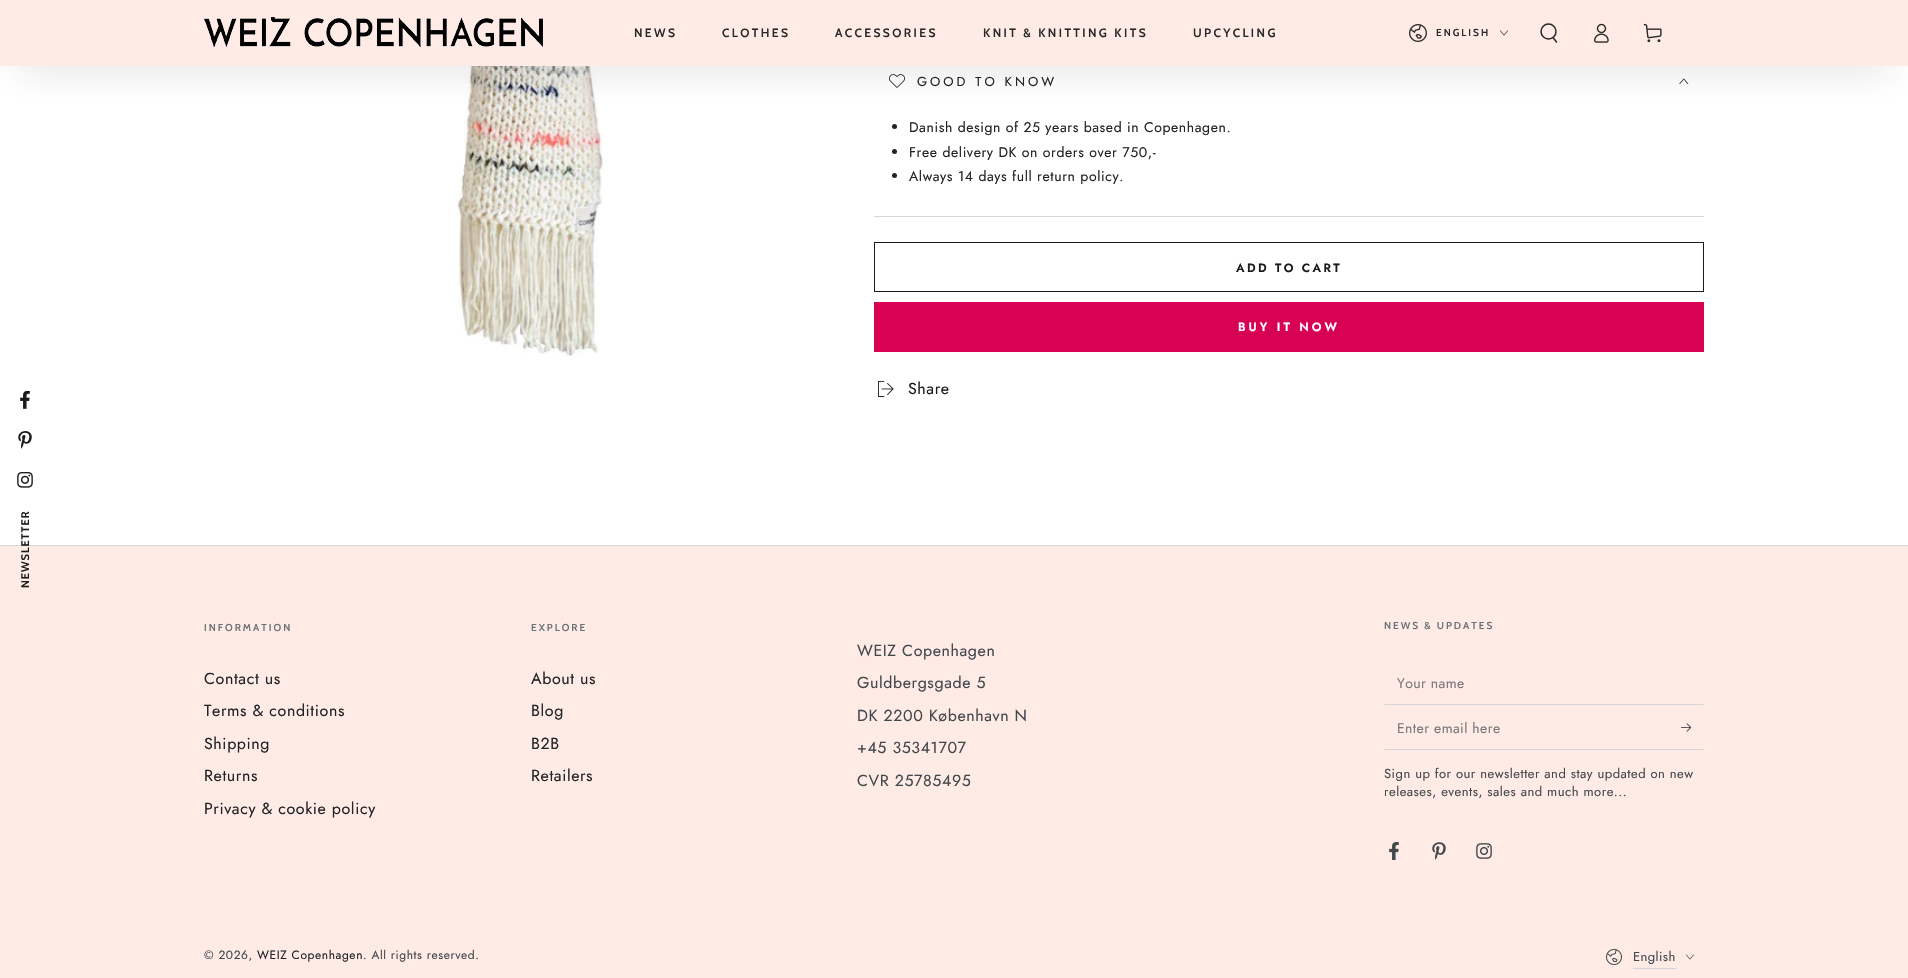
void draw(SkCanvas* canvas) {
	SkPaint fill;
	fill.setAntiAlias(true);
	auto makeFont = [&](const char* family, int weight, float size, bool italic = false) {
		SkFontStyle style(weight, SkFontStyle::kNormal_Width,
			italic ? SkFontStyle::kItalic_Slant : SkFontStyle::kUpright_Slant);
		SkFont result(fontMgr->matchFamilyStyle(family, style), size);
		result.setSubpixel(true);
		return result;
	};
	auto spacedText = [&](const char* s, float x, float y, const SkFont& font, const SkPaint& ink, float letter, float word) {
		std::vector<SkGlyphID> glyphs(font.countText(s, strlen(s), SkTextEncoding::kUTF8));
		std::vector<float> xs(glyphs.size());
		font.textToGlyphs(s, strlen(s), SkTextEncoding::kUTF8, glyphs);
		font.getXPos(glyphs, xs, x);
		float extra = 0;
		for (size_t i = 0; i < glyphs.size(); i++) {
			xs[i] += extra;
			extra += letter + word * (glyphs[i] == font.unicharToGlyph(' '));
		}
		canvas->drawTextBlob(SkTextBlob::MakeFromPosHGlyphs(glyphs, xs, y, font), 0, 0, ink);
	};
	auto box = [&](float l, float t, float r, float b) {
		canvas->drawRect(SkRect::MakeLTRB(l, t, r, b), fill);
	};
	auto picture = [&](const char* path, float l, float t, float r, float b) {
		auto image = SkImages::DeferredFromEncodedData(SkData::MakeFromFileName(path));
		canvas->drawImageRect(image, SkRect::MakeLTRB(l, t, r, b), SkSamplingOptions());
	};
	canvas->clear(0xFFFFFFFF);
	picture("image0.png", 20, 391, 30, 409);
	picture("image1.png", 18, 431, 32, 449);
	picture("image2.png", 17, 472, 33, 488);
	picture("image8.png", 455, 66, 604, 357);
	picture("image9.png", 889, 74, 905, 88);
	picture("image10.png", 1679, 78, 1689, 84);
	fill.setColor(0xFF212326);
	canvas->drawCircle(894.5f, 126.5f, 2.5f, fill);
	fill.setColor(0x33212326);
	fill.setMaskFilter(SkMaskFilter::MakeBlur(kNormal_SkBlurStyle, 20));
	canvas->drawRoundRect(SkRect::MakeLTRB(15, 46, 1893, 66), 10, 10, fill);
	fill.setMaskFilter(nullptr);
	fill.setColor(0xFFFFEBE6);
	box(0, 0, 1908, 66);
	picture("image3.png", 204, 17, 543, 48);
	picture("image4.png", 1409, 24, 1427, 42);
	picture("image5.png", 1500, 30, 1508, 36);
	fill.setStyle(SkPaint::kStroke_Style);
	fill.setStrokeWidth(1.5f);
	fill.setColor(0xFF282828);
	canvas->drawCircle(1548.5f, 31.5f, 7.5f, fill);
	fill.setStrokeCap(SkPaint::kRound_Cap);
	canvas->drawPath(SkPathBuilder().moveTo(1553, 37.5f).lineTo(1556.5f, 42).detach(), fill);
	picture("image6.png", 1594, 23, 1609, 43);
	picture("image7.png", 1643, 23, 1662, 43);
	fill.setStyle(SkPaint::kFill_Style);
	fill.setColor(0xFFD2D5D9);
	box(874, 216, 1704, 217);
	fill.setColor(0xFF212326);
	canvas->drawCircle(894.5f, 151.5f, 2.5f, fill);
	canvas->drawCircle(894.5f, 175.5f, 2.5f, fill);
	fill.setStyle(SkPaint::kStroke_Style);
	fill.setStrokeWidth(1);
	fill.setStrokeCap(SkPaint::kButt_Cap);
	fill.setColor(0xFF1A1B18);
	canvas->drawRect(SkRect::MakeLTRB(874.5f, 242.5f, 1703.5f, 291.5f), fill);
	fill.setStyle(SkPaint::kFill_Style);
	fill.setColor(0xFFD70254);
	box(874, 302, 1704, 352);
	picture("image11.png", 878, 381, 894, 397);
	fill.setColor(0xFFFFEBE6);
	box(0, 546, 1908, 978);
	fill.setColor(0xFFD2D5D9);
	box(0, 545, 1908, 546);
	canvas->drawPath(SkPathBuilder().moveTo(1704, 705).lineTo(1384, 705).lineTo(1385, 704).lineTo(1703, 704).close().detach(), fill);
	canvas->drawPath(SkPathBuilder().moveTo(1704, 750).lineTo(1384, 750).lineTo(1385, 749).lineTo(1703, 749).close().detach(), fill);
	picture("image12.png", 1681, 723, 1692, 732);
	picture("image13.png", 1389, 842, 1399, 860);
	picture("image14.png", 1432, 842, 1446, 860);
	picture("image15.png", 1476, 843, 1492, 859);
	picture("image16.png", 1606, 949, 1622, 965);
	box(1633, 968, 1676, 969);
	picture("image17.png", 1686, 954, 1694, 960);
	auto font1 = makeFont("Cabin", 600, 11);
	fill.setColor(0xFF1A1B18);
	canvas->save();
	canvas->rotate(-90, 29, 588);
	spacedText("NEWSLETTER", 29, 588, font1, fill, 1, 0);
	canvas->restore();
	auto font2 = makeFont("Cabin", 600, 12);
	fill.setColor(0xFF282828);
	spacedText("NEWS", 634, 37, font2, fill, 2.4f, 0);
	spacedText("CLOTHES", 722, 37, font2, fill, 2.4f, 0);
	spacedText("ACCESSORIES", 835, 37, font2, fill, 2.4f, 0);
	spacedText("KNIT & KNITTING KITS", 983, 37, font2, fill, 2.4f, 0);
	spacedText("UPCYCLING", 1193, 37, font2, fill, 2.4f, 0);
	auto font3 = makeFont("Cabin", 600, 10);
	spacedText("ENGLISH", 1436, 36, font3, fill, 2, 0);
	auto font4 = makeFont("Jost", 400, 13);
	fill.setColor(0xFF212326);
	spacedText("GOOD TO KNOW", 917, 86, font4, fill, 3, 0);
	auto font5 = makeFont("Jost", 400, 14);
	spacedText("Danish design of 25 years based in Copenhagen.", 909, 132, font5, fill, 0.6f, 0);
	spacedText("Free delivery DK on orders over 750,-", 909, 157, font5, fill, 0.6f, 0);
	spacedText("Always 14 days full return policy.", 909, 181, font5, fill, 0.6f, 0);
	auto font6 = makeFont("Jost", 600, 12);
	fill.setColor(0xFF1A1B18);
	spacedText("ADD TO CART", 1236, 272, font6, fill, 2.4f, 0);
	fill.setColor(0xFFFFFFFF);
	spacedText("BUY IT NOW", 1238, 331, font6, fill, 3, 0);
	auto font7 = makeFont("Jost", 400, 16);
	fill.setColor(0xFF1A1B18);
	spacedText("Share", 908, 394, font7, fill, 0.6f, 0);
	fill.setColor(0xFF6B7177);
	spacedText("INFORMATION", 204, 631, font3, fill, 2, 0);
	fill.setColor(0xFF212326);
	spacedText("Contact us", 204, 684, font7, fill, 0.6f, 0);
	spacedText("Terms & conditions", 204, 716, font7, fill, 0.6f, 0);
	spacedText("Shipping", 204, 749, font7, fill, 0.6f, 0);
	spacedText("Returns", 204, 781, font7, fill, 0.6f, 0);
	spacedText("Privacy & cookie policy", 204, 814, font7, fill, 0.6f, 0);
	fill.setColor(0xFF6B7177);
	spacedText("EXPLORE", 531, 631, font3, fill, 2, 0);
	fill.setColor(0xFF212326);
	spacedText("About us", 531, 684, font7, fill, 0.6f, 0);
	spacedText("Blog", 531, 716, font7, fill, 0.6f, 0);
	spacedText("B2B", 531, 749, font7, fill, 0.6f, 0);
	spacedText("Retailers", 531, 781, font7, fill, 0.6f, 0);
	fill.setColor(0xFF42474C);
	spacedText("WEIZ Copenhagen", 857, 656, font7, fill, 0.6f, 0);
	spacedText("Guldbergsgade 5", 857, 688, font7, fill, 0.6f, 0);
	spacedText("DK 2200 København N", 857, 721, font7, fill, 0.6f, 0);
	spacedText("+45 35341707", 857, 753, font7, fill, 0.6f, 0);
	spacedText("CVR 25785495", 857, 786, font7, fill, 0.6f, 0);
	fill.setColor(0xFF6B7177);
	spacedText("NEWS & UPDATES", 1384, 629, font3, fill, 2, 0);
	fill.setColor(0xFF7B787A);
	spacedText("Your name", 1397, 688, font5, fill, 0.4f, 0);
	spacedText("Enter email here", 1397, 733, font5, fill, 0.4f, 0);
	fill.setColor(0xFF42474C);
	spacedText("Sign up for our newsletter and stay updated on new", 1384, 778, font4, fill, 0.5f, 0);
	spacedText("releases, events, sales and much more...", 1384, 796, font4, fill, 0.5f, 0);
	auto font8 = makeFont("Jost", 400, 12);
	spacedText("© 2026,", 204, 959, font8, fill, 0.6f, 0);
	fill.setColor(0xFF212326);
	spacedText("WEIZ Copenhagen", 257, 959, font8, fill, 0.6f, 0);
	fill.setColor(0xFF42474C);
	spacedText(". All rights reserved.", 363, 959, font8, fill, 0.6f, 0);
	spacedText("English", 1633, 961, font4, fill, 0.4f, 0);
}
